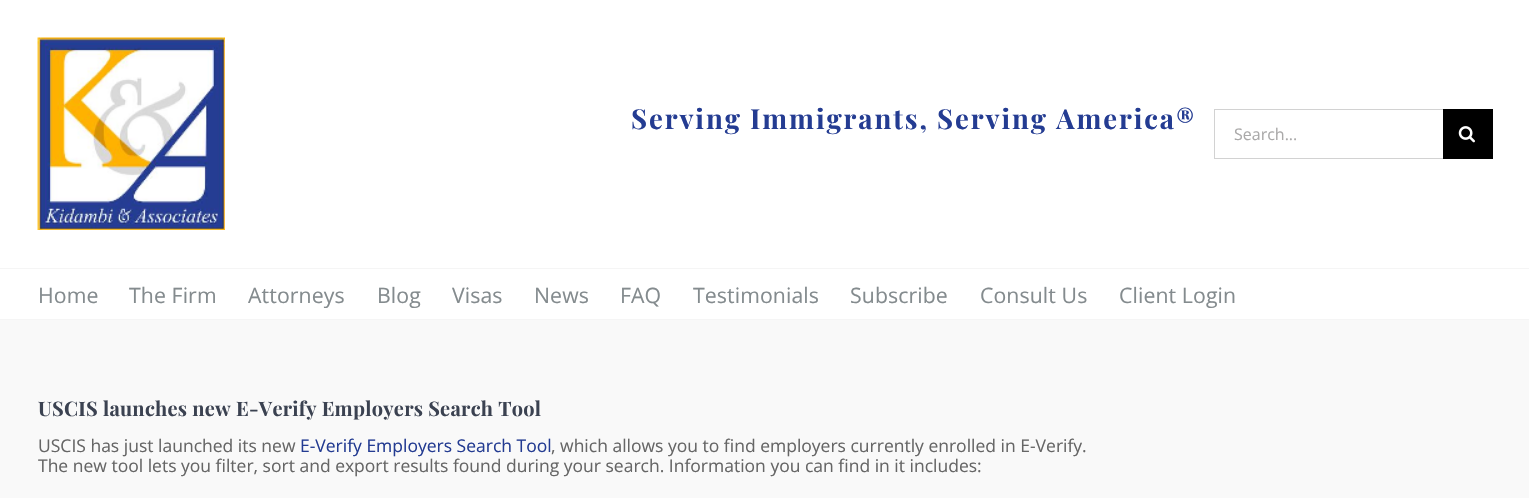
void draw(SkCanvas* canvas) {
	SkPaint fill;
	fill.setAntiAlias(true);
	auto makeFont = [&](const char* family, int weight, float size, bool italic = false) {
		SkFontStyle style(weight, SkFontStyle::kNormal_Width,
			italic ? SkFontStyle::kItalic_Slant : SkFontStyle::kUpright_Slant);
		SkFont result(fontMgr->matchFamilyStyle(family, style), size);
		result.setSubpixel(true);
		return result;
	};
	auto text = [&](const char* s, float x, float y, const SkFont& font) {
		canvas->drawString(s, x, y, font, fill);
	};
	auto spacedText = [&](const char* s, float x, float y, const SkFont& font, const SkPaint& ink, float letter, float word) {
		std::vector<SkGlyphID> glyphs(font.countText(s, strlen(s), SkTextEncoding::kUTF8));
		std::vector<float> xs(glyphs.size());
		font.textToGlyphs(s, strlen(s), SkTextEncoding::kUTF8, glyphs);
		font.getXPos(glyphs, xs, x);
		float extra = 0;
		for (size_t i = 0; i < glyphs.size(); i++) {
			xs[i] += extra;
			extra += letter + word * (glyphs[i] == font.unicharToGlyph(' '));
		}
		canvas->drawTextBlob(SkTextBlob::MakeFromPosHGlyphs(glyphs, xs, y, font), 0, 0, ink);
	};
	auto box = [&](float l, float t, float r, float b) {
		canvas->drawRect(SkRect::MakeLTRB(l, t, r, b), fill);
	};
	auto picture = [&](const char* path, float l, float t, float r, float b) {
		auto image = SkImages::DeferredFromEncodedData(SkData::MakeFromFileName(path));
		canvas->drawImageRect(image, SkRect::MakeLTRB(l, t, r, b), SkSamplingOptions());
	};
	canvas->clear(0xFFF9F9F9);
	fill.setColor(0xFFFFFFFF);
	box(0, 0, 1529, 268);
	fill.setColor(0xFFF5F5F5);
	box(0, 268, 1529, 269);
	picture("image0.png", 37, 37, 225, 230);
	fill.setColor(0xFFD2D2D2);
	box(1214, 109, 1443, 110);
	box(1214, 158, 1443, 159);
	box(1214, 109, 1215, 159);
	fill.setColor(0xFF000000);
	box(1443, 109, 1493, 159);
	picture("image1.png", 1458, 126, 1475, 143);
	fill.setColor(0xFFFFFFFF);
	box(0, 269, 1529, 319);
	fill.setColor(0xFFF5F5F5);
	box(0, 319, 1529, 320);
	auto font1 = makeFont("Playfair Display", 700, 27.5f);
	fill.setColor(0xFF243C92);
	spacedText("Serving Immigrants, Serving America®", 631, 129, font1, fill, 1.9f, 0);
	auto font2 = makeFont("Open Sans", 400, 16);
	fill.setColor(0xFFAAA9A9);
	text("Search...", 1234, 140, font2);
	auto font3 = makeFont("Open Sans", 400, 21.25f);
	fill.setColor(0xFF848B8E);
	spacedText("Home", 38, 303, font3, fill, 0.1f, 0);
	spacedText("The Firm", 129, 303, font3, fill, 0.1f, 0);
	spacedText("Attorneys", 248, 303, font3, fill, 0.1f, 0);
	spacedText("Blog", 377, 303, font3, fill, 0.1f, 0);
	spacedText("Visas", 452, 303, font3, fill, 0.1f, 0);
	spacedText("News", 534, 303, font3, fill, 0.1f, 0);
	spacedText("FAQ", 620, 303, font3, fill, 0.1f, 0);
	spacedText("Testimonials", 693, 303, font3, fill, 0.1f, 0);
	spacedText("Subscribe", 850, 303, font3, fill, 0.1f, 0);
	spacedText("Consult Us", 980, 303, font3, fill, 0.1f, 0);
	spacedText("Client Login", 1119, 303, font3, fill, 0.1f, 0);
	auto font4 = makeFont("Playfair Display", 700, 20);
	fill.setColor(0xFF3B4251);
	spacedText("USCIS launches new E-Verify Employers Search Tool", 38, 416, font4, fill, 0.25f, 0);
	auto font5 = makeFont("Open Sans", 400, 17.5f);
	fill.setColor(0xFF666666);
	text("USCIS has just launched its new", 38, 452, font5);
	fill.setColor(0xFF243C92);
	text("E-Verify Employers Search Tool", 300, 452, font5);
	fill.setColor(0xFF666666);
	text(", which allows you to find employers currently enrolled in E-Verify.", 551, 452, font5);
	text("The new tool lets you filter, sort and export results found during your search. Information you can find in it includes:", 38, 472, font5);
}
